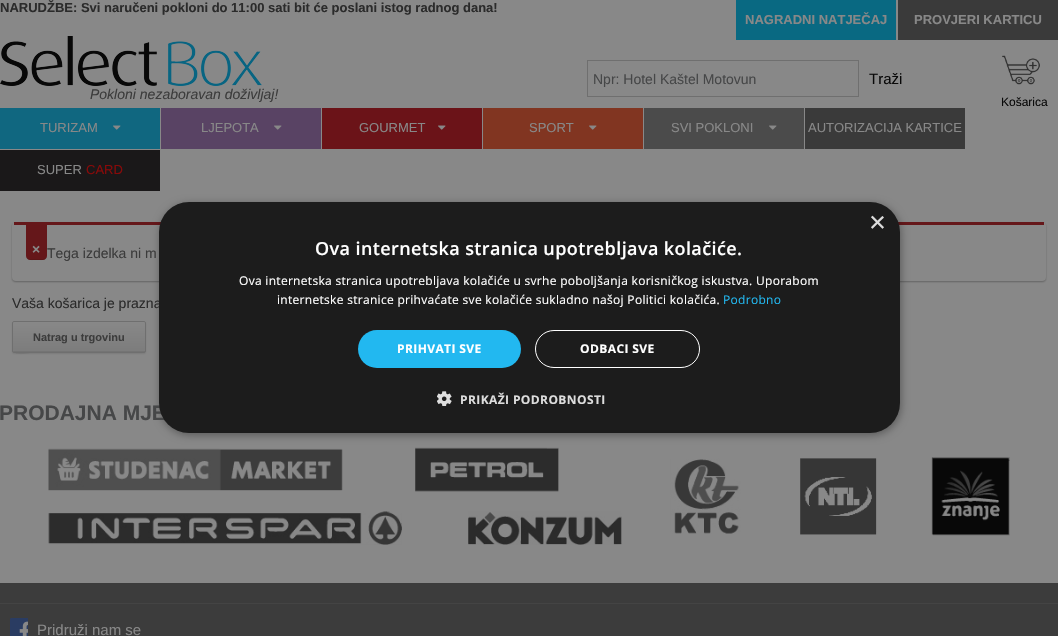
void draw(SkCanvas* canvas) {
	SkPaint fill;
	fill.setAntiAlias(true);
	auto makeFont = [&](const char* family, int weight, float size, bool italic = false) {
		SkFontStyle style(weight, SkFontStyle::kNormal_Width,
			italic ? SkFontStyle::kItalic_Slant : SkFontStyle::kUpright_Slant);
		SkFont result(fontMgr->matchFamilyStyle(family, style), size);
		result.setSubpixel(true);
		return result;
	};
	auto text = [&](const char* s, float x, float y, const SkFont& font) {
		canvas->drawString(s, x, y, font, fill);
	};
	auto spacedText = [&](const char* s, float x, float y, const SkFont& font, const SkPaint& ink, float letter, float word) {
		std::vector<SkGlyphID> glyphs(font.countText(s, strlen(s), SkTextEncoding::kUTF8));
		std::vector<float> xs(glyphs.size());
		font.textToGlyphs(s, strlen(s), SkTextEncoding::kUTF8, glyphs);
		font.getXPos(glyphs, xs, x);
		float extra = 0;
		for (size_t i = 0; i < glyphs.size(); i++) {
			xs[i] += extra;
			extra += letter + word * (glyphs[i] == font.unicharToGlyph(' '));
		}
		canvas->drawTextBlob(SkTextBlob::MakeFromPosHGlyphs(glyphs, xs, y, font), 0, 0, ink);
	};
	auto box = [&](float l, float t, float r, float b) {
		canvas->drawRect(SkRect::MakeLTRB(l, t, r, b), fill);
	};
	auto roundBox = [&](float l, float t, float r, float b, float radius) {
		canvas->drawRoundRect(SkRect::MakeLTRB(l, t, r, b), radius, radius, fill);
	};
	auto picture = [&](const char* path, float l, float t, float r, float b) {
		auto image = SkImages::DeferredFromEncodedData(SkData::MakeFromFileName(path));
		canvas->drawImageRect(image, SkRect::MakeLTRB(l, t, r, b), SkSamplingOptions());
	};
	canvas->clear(0xFF888888);
	fill.setColor(0xFF096982);
	box(736, 0, 896, 40);
	fill.setColor(0xFF3A3A3A);
	box(898, 0, 1058, 40);
	fill.setStyle(SkPaint::kStroke_Style);
	fill.setStrokeWidth(1);
	fill.setColor(0xFF6F6F6F);
	canvas->drawRect(SkRect::MakeLTRB(587.5f, 60.5f, 858.5f, 96.5f), fill);
	picture("image0.png", 0, 36, 262, 86);
	picture("image1.png", 1002, 55, 1040, 85);
	fill.setStyle(SkPaint::kFill_Style);
	fill.setColor(0xFF106780);
	box(0, 108, 160, 149);
	picture("image2.png", 113, 125, 121, 130);
	fill.setColor(0xFF594364);
	box(161, 108, 321, 149);
	picture("image3.png", 274, 125, 282, 130);
	fill.setColor(0xFF6B1318);
	box(322, 108, 482, 149);
	picture("image4.png", 438, 125, 446, 130);
	fill.setColor(0xFF813521);
	box(483, 108, 643, 149);
	picture("image5.png", 589, 125, 597, 130);
	fill.setColor(0xFF4B4B4B);
	box(644, 108, 804, 149);
	picture("image6.png", 769, 125, 777, 130);
	fill.setColor(0xFF3A3A3A);
	box(805, 108, 965, 149);
	fill.setColor(0xFF1A1819);
	box(0, 150, 160, 191);
	fill.setColor(0x4D090909);
	fill.setMaskFilter(SkMaskFilter::MakeBlur(kNormal_SkBlurStyle, 1));
	canvas->drawRoundRect(SkRect::MakeLTRB(12, 223, 1046, 282), 4, 4, fill);
	fill.setMaskFilter(nullptr);
	fill.setColor(0xFF888888);
	roundBox(12, 222, 1046, 281, 4);
	fill.setColor(0xFF65171A);
	box(14, 222, 1044, 225);
	canvas->drawPath(SkPathBuilder().moveTo(26, 225).lineTo(47, 225).lineTo(47, 256).cubicTo(47, 258, 45, 260, 43, 260).lineTo(30, 260).cubicTo(28, 260, 26, 258, 26, 256).close().detach(), fill);
	fill.setColor(0x1A090909);
	canvas->drawPath(SkPathBuilder().moveTo(26, 255).cubicTo(26, 261.5f, 31.5f, 260, 36.5f, 260).cubicTo(41.5f, 260, 47, 261.5f, 47, 255).cubicTo(47, 260, 39.5f, 259, 36.5f, 259).cubicTo(33.5f, 259, 26, 260, 26, 255).close().detach(), fill);
	fill.setMaskFilter(SkMaskFilter::MakeBlur(kNormal_SkBlurStyle, 1));
	canvas->drawRoundRect(SkRect::MakeLTRB(12, 322, 146, 354), 2, 2, fill);
	fill.setMaskFilter(nullptr);
	canvas->save();
	canvas->clipPath(SkPathBuilder().moveTo(14, 321).lineTo(144, 321).cubicTo(145, 321, 146, 322, 146, 323).lineTo(146, 351).cubicTo(146, 352, 145, 353, 144, 353).lineTo(14, 353).cubicTo(13, 353, 12, 352, 12, 351).lineTo(12, 323).cubicTo(12, 322, 13, 321, 14, 321).close().detach(), true);
	{
		const SkColor colors[] = {0xFF888888, 0xFF7C7C7C};
		const float stops[] = {0, 1};
		const SkPoint ends[] = {{79, 322}, {79, 352}};
		fill.setShader(SkGradientShader::MakeLinear(ends, colors, stops, 2, SkTileMode::kClamp));
		fill.setAlpha(255);
	}
	box(12, 322, 146, 352);
	canvas->restore();
	fill.setShader(nullptr);
	fill.setColor(0x12090909);
	canvas->drawPath(SkPathBuilder().moveTo(13, 350).cubicTo(13, 358, 35, 352, 36, 352).lineTo(145, 352).lineTo(145, 350).cubicTo(145, 351, 145, 351, 144, 351).lineTo(14, 351).cubicTo(13, 351, 13, 351, 13, 350).close().detach(), fill);
	fill.setStyle(SkPaint::kStroke_Style);
	fill.setColor(0xFF6F6F6F);
	canvas->drawRoundRect(SkRect::MakeLTRB(12.5f, 321.5f, 145.5f, 352.5f), 1.5f, 1.5f, fill);
	picture("image8.png", 48, 447, 1010, 545);
	fill.setStyle(SkPaint::kFill_Style);
	fill.setColor(0x59000000);
	fill.setMaskFilter(SkMaskFilter::MakeBlur(kNormal_SkBlurStyle, 4));
	canvas->drawRoundRect(SkRect::MakeLTRB(160, 204, 901, 435), 30, 30, fill);
	fill.setMaskFilter(nullptr);
	fill.setColor(0xFF3C3C3C);
	box(0, 583, 1058, 636);
	fill.setColor(0xFF444444);
	box(0, 603, 1058, 604);
	picture("image9.png", 10, 618, 28, 636);
	auto font1 = makeFont("Liberation Sans", 700, 13);
	fill.setColor(0xFF2B2B2B);
	text("NARUDŽBE: Svi naručeni pokloni do 11:00 sati bit će poslani istog radnog dana!", 0, 12, font1);
	fill.setColor(0xFF888888);
	text("NAGRADNI NATJEČAJ", 745, 24, font1);
	text("PROVJERI KARTICU", 914, 24, font1);
	auto font2 = makeFont("Liberation Sans", 400, 14);
	fill.setColor(0xFF464748);
	text("Npr: Hotel Kaštel Motovun", 593, 84, font2);
	auto font3 = makeFont("Liberation Sans", 400, 15);
	fill.setColor(0xFF090909);
	text("Traži", 869, 84, font3);
	auto font4 = makeFont("Liberation Sans", 400, 14, true);
	fill.setColor(0xFF3C3C3C);
	text("Pokloni nezaboravan doživljaj!", 90, 99, font4);
	auto font5 = makeFont("Liberation Sans", 400, 12);
	fill.setColor(0xFF090909);
	text("Košаrica", 1001, 106, font5);
	auto font6 = makeFont("Liberation Sans", 400, 13);
	fill.setColor(0xFF888888);
	text("TURIZAM", 40, 132, font6);
	text("LJEPOTA", 201, 132, font6);
	text("GOURMET", 359, 132, font6);
	text("SPORT", 529, 132, font6);
	text("SVI POKLONI", 671, 132, font6);
	text("AUTORIZACIJA KARTICE", 808, 132, font6);
	text("SUPER", 37, 174, font6);
	fill.setColor(0xFF880909);
	text("CARD", 86, 174, font6);
	auto font7 = makeFont("Liberation Sans", 700, 14);
	fill.setColor(0xFF888888);
	text("×", 32, 254, font7);
	fill.setColor(0xFF3C3C3C);
	text("Tega izdelka ni m", 47, 258, font2);
	fill.setColor(0xFF2B2B2B);
	text("Vaša košarica je prazna", 12, 308, font2);
	auto font8 = makeFont("Liberation Sans", 700, 11);
	fill.setColor(0xFF3C3C3C);
	text("Natrag u trgovinu", 33, 341, font8);
	auto font9 = makeFont("Liberation Sans", 700, 21);
	fill.setColor(0xFF464748);
	text("PRODAJNA MJE", -1, 420, font9);
	fill.setColor(0xFF1C1C1C);
	roundBox(159, 202, 900, 433, 30);
	auto font10 = makeFont("Liberation Sans", 400, 29);
	fill.setColor(0xFFDDDDDD);
	text("×", 869, 232, font10);
	auto font11 = makeFont("Open Sans", 600, 18);
	fill.setColor(0xFFFFFFFF);
	spacedText("Ova internetska stranica upotrebljava kolačiće.", 315, 255, font11, fill, 0.4f, 0);
	picture("image7.png", 437, 391, 452, 406);
	auto font12 = makeFont("Open Sans", 700, 12);
	fill.setColor(0xFFDDDDDD);
	spacedText("PRIKAŽI PODROBNOSTI", 460, 404, font12, fill, 0.4f, 0);
	fill.setStyle(SkPaint::kStroke_Style);
	fill.setColor(0xFFFFFFFF);
	canvas->drawRoundRect(SkRect::MakeLTRB(535.5f, 330.5f, 699.5f, 367.5f), 18.5f, 18.5f, fill);
	fill.setStyle(SkPaint::kFill_Style);
	spacedText("ODBACI SVE", 580, 353, font12, fill, 0.4f, 0);
	fill.setColor(0xFF22B8F0);
	roundBox(358, 330, 521, 368, 19);
	fill.setColor(0xFFFFFFFF);
	spacedText("PRIHVATI SVE", 397, 353, font12, fill, 0.4f, 0);
	auto font13 = makeFont("Open Sans", 400, 12);
	fill.setColor(0xFF22B8F0);
	spacedText("Podrobno", 723, 304, font13, fill, 0.3f, 0);
	fill.setColor(0xFFFFFFFF);
	spacedText("internetske stranice prihvaćate sve kolačiće sukladno našoj Politici kolačića.", 277, 304, font13, fill, 0.3f, 0);
	spacedText("Ova internetska stranica upotrebljava kolačiće u svrhe poboljšanja korisničkog iskustva. Uporabom", 239, 285, font13, fill, 0.3f, 0);
	fill.setColor(0xFF888888);
	text("Pridruži nam se", 37, 635, font3);
}
